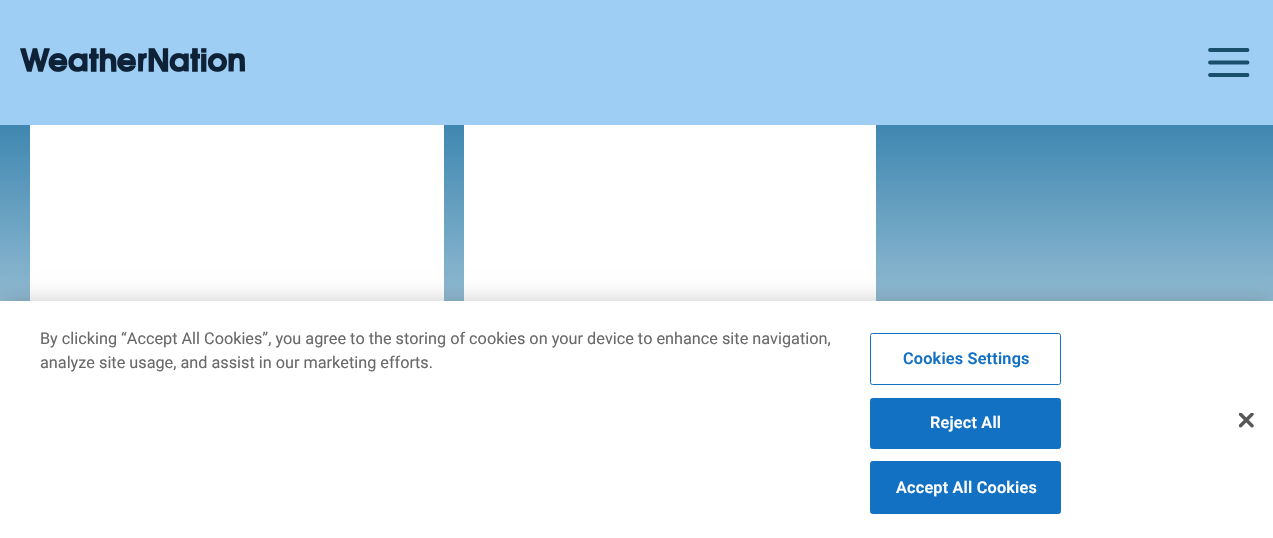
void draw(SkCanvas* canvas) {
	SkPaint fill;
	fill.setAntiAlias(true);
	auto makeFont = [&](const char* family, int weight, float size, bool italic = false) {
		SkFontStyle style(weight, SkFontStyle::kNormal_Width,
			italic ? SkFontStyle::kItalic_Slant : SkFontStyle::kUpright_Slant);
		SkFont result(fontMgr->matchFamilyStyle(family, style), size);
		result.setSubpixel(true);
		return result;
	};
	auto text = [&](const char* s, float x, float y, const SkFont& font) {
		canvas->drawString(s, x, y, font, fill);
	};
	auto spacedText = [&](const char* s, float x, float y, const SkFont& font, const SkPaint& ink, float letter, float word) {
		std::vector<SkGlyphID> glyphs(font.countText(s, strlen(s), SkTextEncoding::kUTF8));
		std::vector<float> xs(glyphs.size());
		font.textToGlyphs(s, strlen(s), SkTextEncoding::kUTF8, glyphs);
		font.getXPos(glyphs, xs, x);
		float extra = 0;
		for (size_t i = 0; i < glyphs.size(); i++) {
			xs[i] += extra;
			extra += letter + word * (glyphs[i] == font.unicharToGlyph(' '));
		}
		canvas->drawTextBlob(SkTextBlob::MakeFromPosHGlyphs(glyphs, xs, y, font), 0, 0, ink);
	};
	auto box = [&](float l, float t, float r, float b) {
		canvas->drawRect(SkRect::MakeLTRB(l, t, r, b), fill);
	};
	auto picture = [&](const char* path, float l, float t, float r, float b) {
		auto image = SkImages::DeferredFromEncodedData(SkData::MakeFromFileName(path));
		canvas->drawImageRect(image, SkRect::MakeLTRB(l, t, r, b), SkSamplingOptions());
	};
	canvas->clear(0xFFFFFFFF);
	{
		const SkColor colors[] = {0xFF056399, 0xFFFFFFFF};
		const float stops[] = {0, 1};
		const SkPoint ends[] = {{637, 0}, {637, 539}};
		fill.setShader(SkGradientShader::MakeLinear(ends, colors, stops, 2, SkTileMode::kClamp));
		fill.setAlpha(255);
	}
	box(0, 125, 1273, 301);
	fill.setShader(nullptr);
	fill.setColor(0xFF9ECEF4);
	box(0, 0, 1273, 125);
	picture("image0.png", 20, 48, 245, 72);
	fill.setStyle(SkPaint::kStroke_Style);
	fill.setStrokeWidth(3.8f);
	fill.setStrokeCap(SkPaint::kRound_Cap);
	fill.setStrokeJoin(SkPaint::kRound_Join);
	fill.setColor(0xFF194E6D);
	canvas->drawPath(SkPathBuilder().moveTo(1210, 62.5f).lineTo(1247.5f, 62.5f).moveTo(1210, 50).lineTo(1247.5f, 50).moveTo(1210, 75).lineTo(1247.5f, 75).detach(), fill);
	fill.setStyle(SkPaint::kFill_Style);
	fill.setColor(0xFFFFFFFF);
	box(30, 125, 444, 301);
	box(464, 125, 876, 301);
	fill.setColor(0x33000000);
	fill.setMaskFilter(SkMaskFilter::MakeBlur(kNormal_SkBlurStyle, 11));
	canvas->drawRect(SkRect::MakeLTRB(0, 301, 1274, 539), fill);
	fill.setMaskFilter(nullptr);
	fill.setColor(0xFFFFFFFF);
	box(0, 301, 1273, 538);
	fill.setStyle(SkPaint::kStroke_Style);
	fill.setStrokeWidth(1);
	fill.setStrokeCap(SkPaint::kButt_Cap);
	fill.setStrokeJoin(SkPaint::kMiter_Join);
	fill.setColor(0xFF1371C3);
	canvas->drawRoundRect(SkRect::MakeLTRB(870.5f, 333.5f, 1060.5f, 384.5f), 2, 2, fill);
	fill.setStyle(SkPaint::kFill_Style);
	canvas->drawRoundRect(SkRect::MakeLTRB(870.5f, 398.5f, 1060.5f, 448.5f), 2, 2, fill);
	fill.setStyle(SkPaint::kStroke_Style);
	canvas->drawRoundRect(SkRect::MakeLTRB(870.5f, 398.5f, 1060.5f, 448.5f), 2, 2, fill);
	fill.setStyle(SkPaint::kFill_Style);
	canvas->drawRoundRect(SkRect::MakeLTRB(870.5f, 461.5f, 1060.5f, 513.5f), 2, 2, fill);
	fill.setStyle(SkPaint::kStroke_Style);
	canvas->drawRoundRect(SkRect::MakeLTRB(870.5f, 461.5f, 1060.5f, 513.5f), 2, 2, fill);
	picture("image1.png", 1239, 413, 1254, 428);
	auto font1 = makeFont("Roboto", 400, 16.25f);
	fill.setStyle(SkPaint::kFill_Style);
	fill.setColor(0xFF696969);
	text("By clicking “Accept All Cookies”, you agree to the storing of cookies on your device to enhance site navigation,", 40, 344, font1);
	text("analyze site usage, and assist in our marketing efforts.", 40, 368, font1);
	auto font2 = makeFont("Roboto", 600, 16.25f);
	fill.setColor(0xFF1371C3);
	spacedText("Cookies Settings", 903, 364, font2, fill, 0.2f, 0);
	fill.setColor(0xFFFFFFFF);
	spacedText("Reject All", 930, 428, font2, fill, 0.2f, 0);
	spacedText("Accept All Cookies", 896, 493, font2, fill, 0.2f, 0);
}
